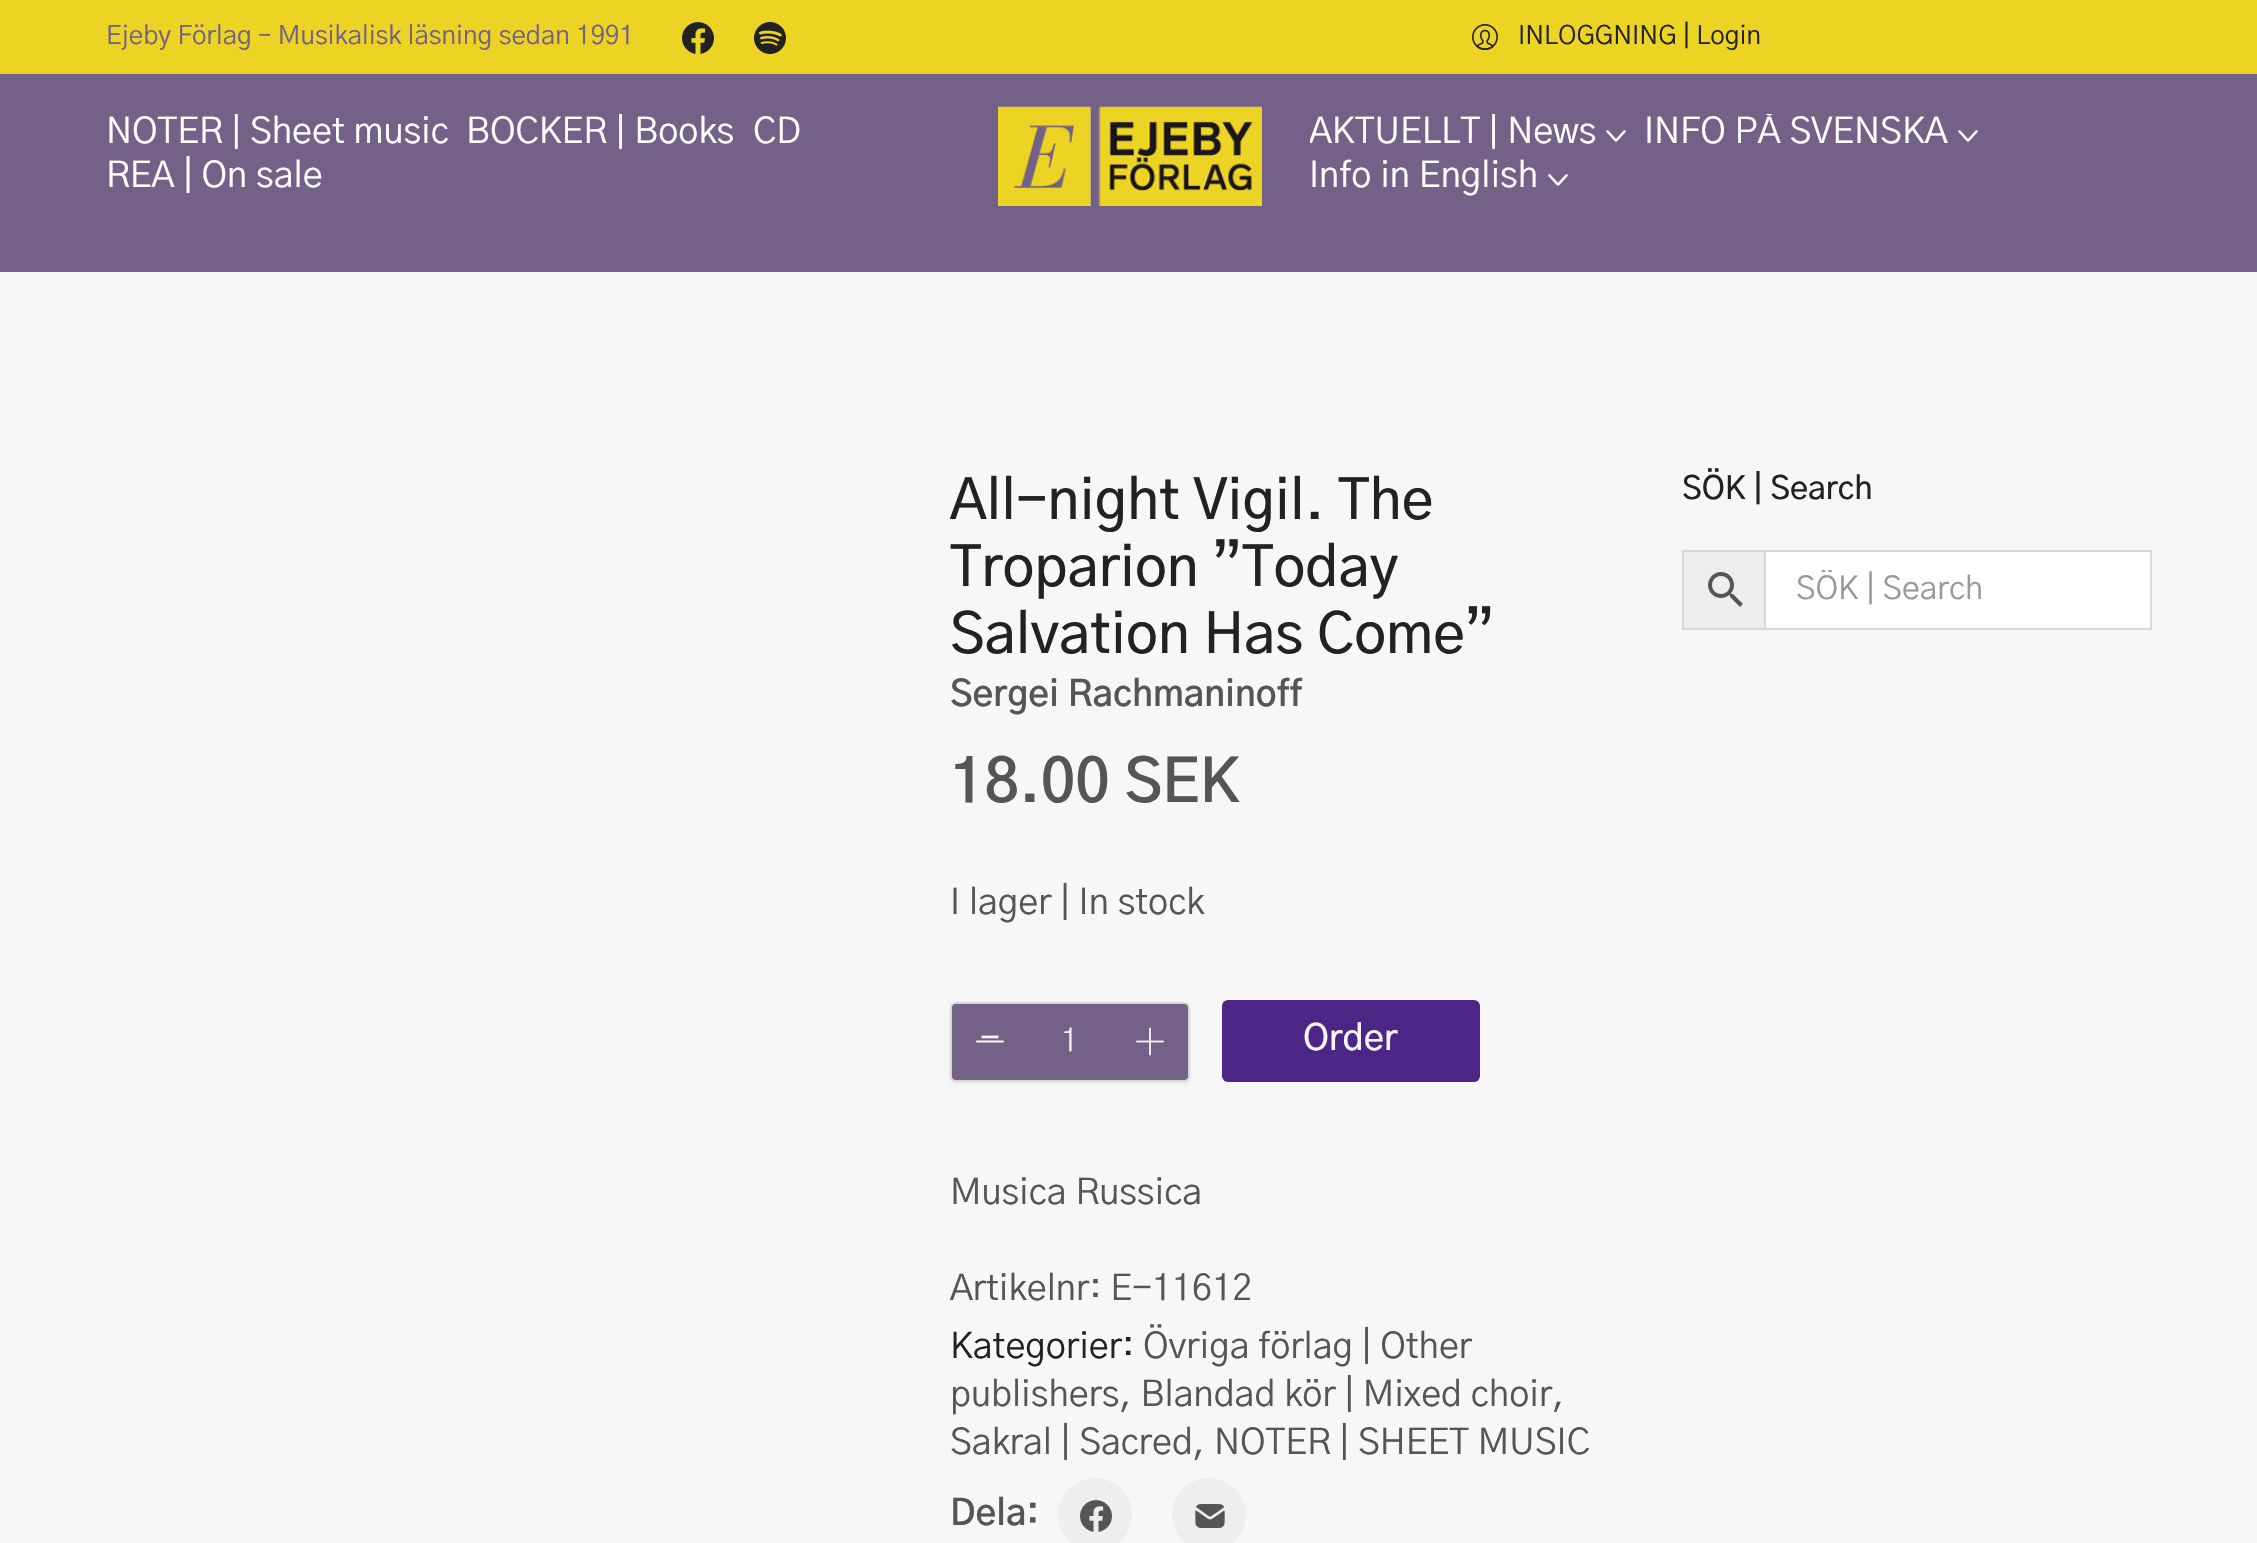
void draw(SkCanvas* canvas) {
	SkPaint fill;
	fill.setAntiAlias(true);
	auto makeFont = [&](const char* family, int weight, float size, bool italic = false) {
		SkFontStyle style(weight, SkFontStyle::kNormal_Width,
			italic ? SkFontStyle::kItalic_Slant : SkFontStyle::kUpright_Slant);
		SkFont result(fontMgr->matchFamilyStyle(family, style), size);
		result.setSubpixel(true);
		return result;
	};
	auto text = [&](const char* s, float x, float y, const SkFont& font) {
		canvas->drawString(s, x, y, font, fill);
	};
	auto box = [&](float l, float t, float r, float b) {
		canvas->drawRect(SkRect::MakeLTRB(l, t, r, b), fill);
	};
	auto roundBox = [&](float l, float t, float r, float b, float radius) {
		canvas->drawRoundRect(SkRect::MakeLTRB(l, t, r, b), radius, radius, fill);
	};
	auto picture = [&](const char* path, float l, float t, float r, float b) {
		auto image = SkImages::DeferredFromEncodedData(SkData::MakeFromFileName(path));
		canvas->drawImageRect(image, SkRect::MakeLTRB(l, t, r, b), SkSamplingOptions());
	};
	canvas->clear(0xFFF7F7F7);
	fill.setColor(0xFFEDD424);
	box(0, 0, 2257, 74);
	picture("image0.png", 682, 22, 714, 54);
	picture("image1.png", 754, 22, 786, 54);
	picture("image2.png", 1472, 24, 1498, 50);
	fill.setColor(0xFF736187);
	box(0, 74, 2257, 272);
	picture("image3.png", 998, 106, 1262, 206);
	picture("image4.png", 1606, 130, 1626, 142);
	picture("image4.png", 1958, 130, 1978, 142);
	picture("image4.png", 1548, 174, 1568, 186);
	fill.setColor(0x0D000000);
	fill.setMaskFilter(SkMaskFilter::MakeBlur(kNormal_SkBlurStyle, 2));
	canvas->drawRoundRect(SkRect::MakeLTRB(950, 1004, 1190, 1084), 6, 6, fill);
	fill.setMaskFilter(nullptr);
	fill.setColor(0xFF736187);
	canvas->drawRoundRect(SkRect::MakeLTRB(951, 1003, 1189, 1081), 5, 5, fill);
	fill.setStyle(SkPaint::kStroke_Style);
	fill.setStrokeWidth(2);
	fill.setColor(0xFFD6D6D6);
	canvas->drawRoundRect(SkRect::MakeLTRB(951, 1003, 1189, 1081), 5, 5, fill);
	fill.setStyle(SkPaint::kFill_Style);
	fill.setColor(0xFFFBFAFA);
	canvas->drawPath(SkPathBuilder().moveTo(976, 1041.5f).lineTo(976.5f, 1040.5f).lineTo(1003.5f, 1040.5f).lineTo(1004, 1041.5f).lineTo(1003.5f, 1042.5f).lineTo(976.5f, 1042.5f).close().detach(), fill);
	picture("image5.png", 1136, 1027, 1164, 1056);
	fill.setColor(0xFF4C2587);
	roundBox(1222, 1000, 1480, 1082, 6);
	fill.setColor(0xFFEEEEEE);
	canvas->drawCircle(1095, 1515, 37, fill);
	picture("image6.png", 1080, 1500, 1112, 1532);
	canvas->drawCircle(1209, 1515, 37, fill);
	picture("image7.png", 1195, 1504, 1225, 1528);
	fill.setColor(0xFFFFFFFF);
	box(1766, 552, 2150, 628);
	fill.setColor(0xFFEDEDED);
	canvas->drawRect(SkRect::MakeLTRB(1683, 551, 1765, 629), fill);
	fill.setStyle(SkPaint::kStroke_Style);
	fill.setColor(0xFFD8D8D8);
	canvas->drawRect(SkRect::MakeLTRB(1683, 551, 1765, 629), fill);
	picture("image8.png", 1708, 572, 1743, 607);
	canvas->drawRect(SkRect::MakeLTRB(1765, 551, 2151, 629), fill);
	auto font1 = makeFont("Gothic A1", 400, 26);
	fill.setStyle(SkPaint::kFill_Style);
	fill.setColor(0xFF736187);
	text("Ejeby Förlag – Musikalisk läsning sedan 1991", 106, 44, font1);
	fill.setColor(0xFF222222);
	text("INLOGGNING | Login", 1518, 44, font1);
	canvas->save();
	canvas->clipRect(SkRect::MakeLTRB(106, 114, 448, 156));
	auto font2 = makeFont("Gothic A1", 400, 36);
	fill.setColor(0xFFFFFFFF);
	text("NOTER | Sheet music", 106, 143, font2);
	canvas->restore();
	canvas->save();
	canvas->clipRect(SkRect::MakeLTRB(466, 114, 734, 156));
	text("BÖCKER | Books", 466, 143, font2);
	canvas->restore();
	text("CD", 753, 143, font2);
	text("REA | On sale", 106, 187, font2);
	canvas->save();
	canvas->clipRect(SkRect::MakeLTRB(1310, 114, 1626, 156));
	text("AKTUELLT | News", 1309, 143, font2);
	canvas->restore();
	canvas->save();
	canvas->clipRect(SkRect::MakeLTRB(1644, 114, 1978, 156));
	text("INFO PÅ SVENSKA", 1644, 143, font2);
	canvas->restore();
	text("Info in English", 1309, 187, font2);
	auto font3 = makeFont("Gothic A1", 500, 56);
	fill.setColor(0xFF222222);
	text("All-night Vigil. The", 950, 519, font3);
	text("Troparion ”Today", 950, 586, font3);
	text("Salvation Has Come”", 950, 653, font3);
	auto font4 = makeFont("Gothic A1", 600, 36);
	fill.setColor(0xFF555555);
	text("Sergei Rachmaninoff", 950, 706, font4);
	auto font5 = makeFont("Gothic A1", 600, 60);
	text("18.00 SEK", 950, 802, font5);
	text("I lager | In stock", 950, 914, font2);
	fill.setColor(0xFFF7F7F7);
	text("-", 980, 1050, font2);
	auto font6 = makeFont("Gothic A1", 300, 32);
	text("1", 1061, 1051, font6);
	auto font7 = makeFont("Gothic A1", 500, 36);
	text("Order", 1303, 1050, font7);
	fill.setColor(0xFF555555);
	text("Musica Russica", 950, 1204, font2);
	text("Artikelnr: E-11612", 950, 1300, font2);
	fill.setColor(0xFF222222);
	text("Kategorier:", 950, 1358, font2);
	fill.setColor(0xFF555555);
	text("Övriga förlag | Other", 1143, 1358, font2);
	text("publishers, Blandad kör | Mixed choir,", 950, 1406, font2);
	text("Sakral | Sacred, NOTER | SHEET MUSIC", 950, 1454, font2);
	text("Dela:", 950, 1525, font4);
	auto font8 = makeFont("Gothic A1", 500, 32);
	fill.setColor(0xFF222222);
	text("SÖK | Search", 1682, 499, font8);
	canvas->save();
	canvas->clipRect(SkRect::MakeLTRB(1796, 570, 2120, 610));
	auto font9 = makeFont("Gothic A1", 400, 32);
	fill.setColor(0xFF999999);
	text("SÖK | Search", 1796, 599, font9);
	canvas->restore();
}
